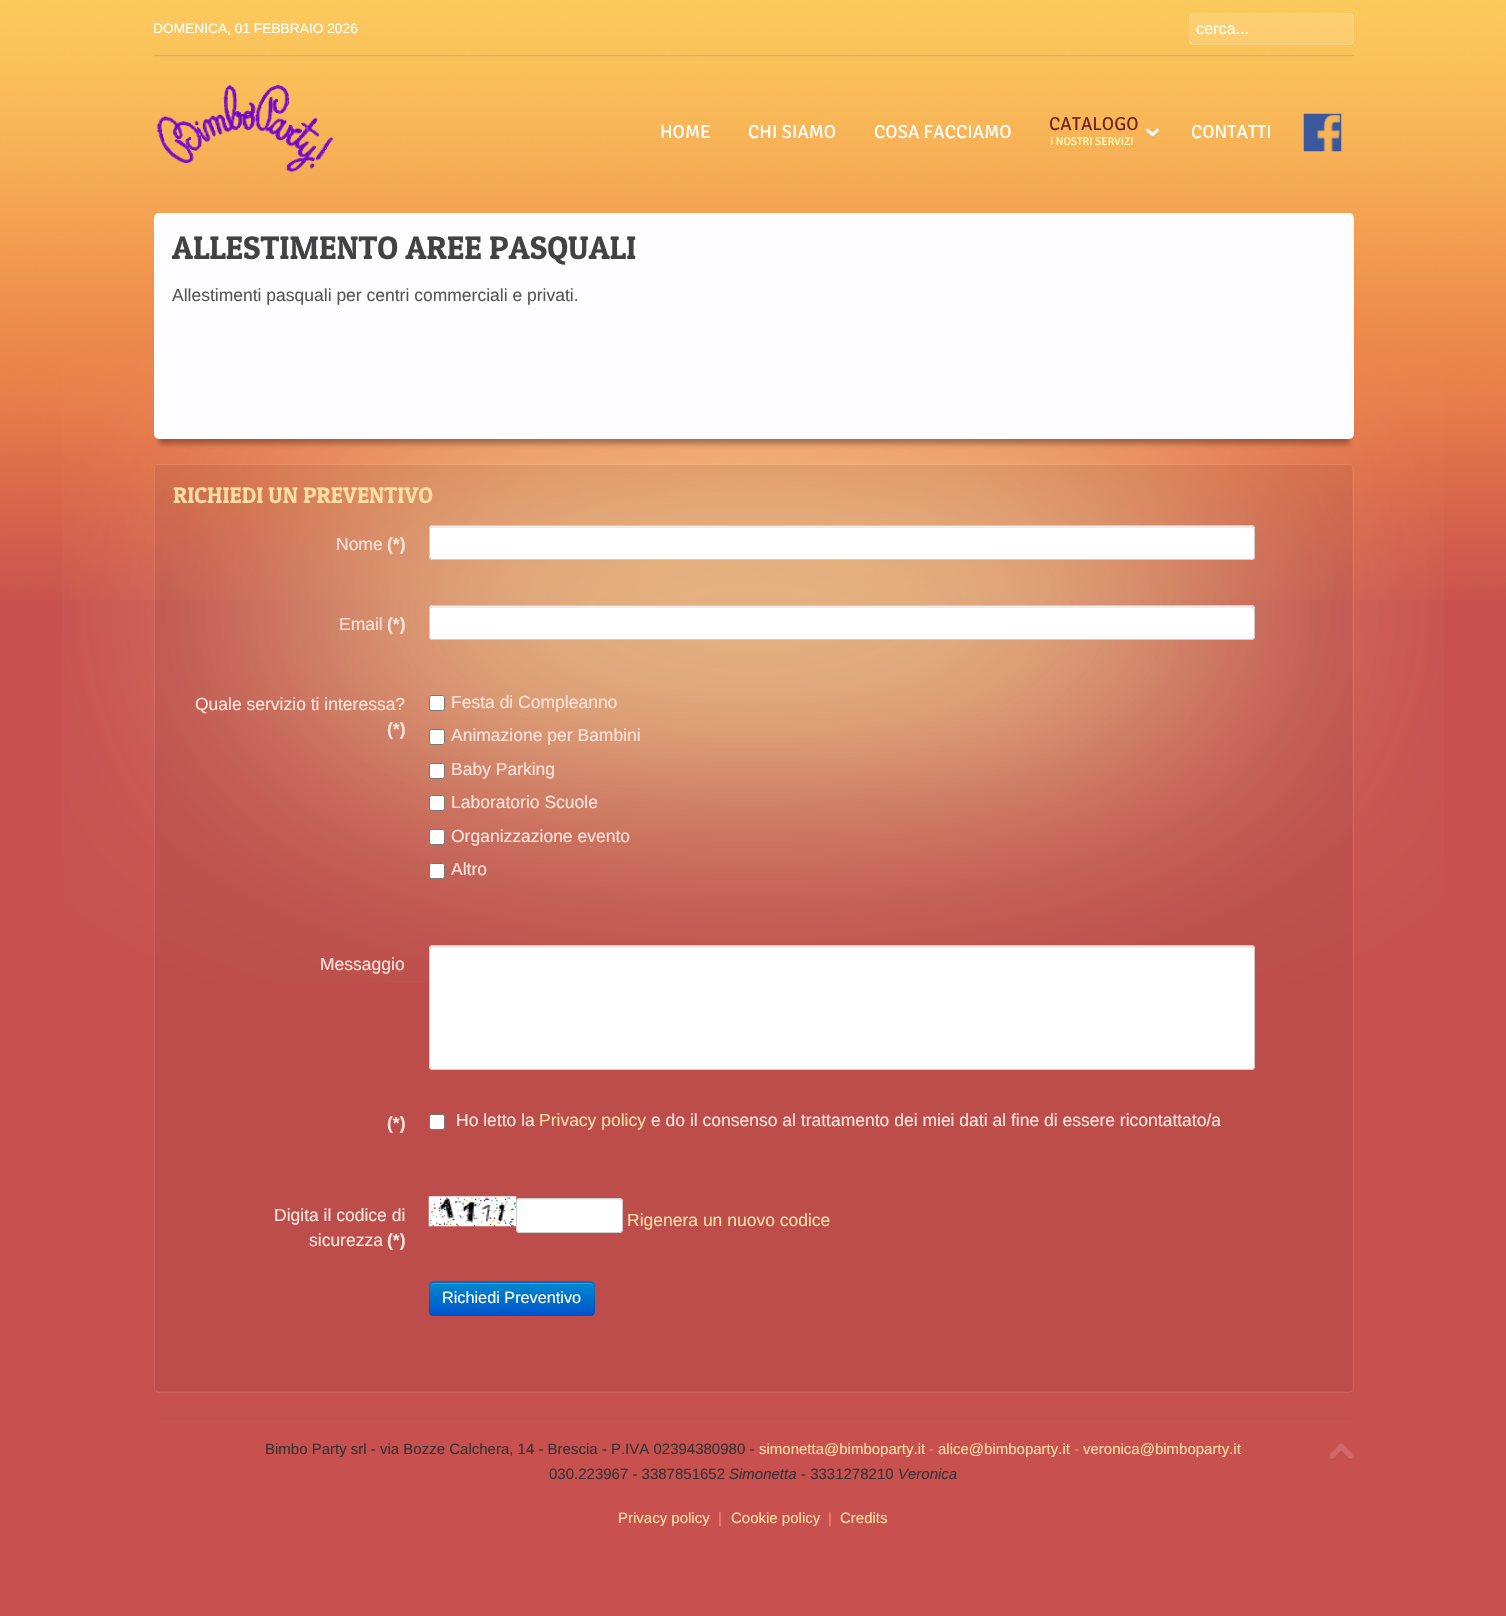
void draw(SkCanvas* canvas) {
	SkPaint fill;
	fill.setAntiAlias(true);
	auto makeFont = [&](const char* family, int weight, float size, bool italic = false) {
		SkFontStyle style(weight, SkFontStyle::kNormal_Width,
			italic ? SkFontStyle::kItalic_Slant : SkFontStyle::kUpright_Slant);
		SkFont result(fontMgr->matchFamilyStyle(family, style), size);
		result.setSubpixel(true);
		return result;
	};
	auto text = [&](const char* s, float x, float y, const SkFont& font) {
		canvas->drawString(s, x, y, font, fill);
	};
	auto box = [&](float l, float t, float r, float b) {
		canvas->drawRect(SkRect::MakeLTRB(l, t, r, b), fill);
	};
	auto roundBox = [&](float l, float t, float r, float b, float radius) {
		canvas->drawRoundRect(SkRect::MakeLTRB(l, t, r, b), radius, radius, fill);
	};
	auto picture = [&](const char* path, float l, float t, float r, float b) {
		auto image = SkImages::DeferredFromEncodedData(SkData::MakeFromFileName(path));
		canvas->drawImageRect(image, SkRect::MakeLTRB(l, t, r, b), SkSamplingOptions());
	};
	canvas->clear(0xFFC8514F);
	picture("image0.png", 0, 0, 1506, 600);
	picture("image1.png", 62, 353, 1444, 983);
	picture("image2.png", 153, 55, 1354, 57);
	fill.setColor(0x33FFF0C3);
	box(1190, 14, 1353, 44);
	fill.setStyle(SkPaint::kStroke_Style);
	fill.setStrokeWidth(1);
	fill.setColor(0x66FFF2C4);
	canvas->drawRoundRect(SkRect::MakeLTRB(1189.5f, 13.5f, 1353.5f, 44.5f), 3.5f, 3.5f, fill);
	picture("image3.png", 156, 84, 333, 173);
	picture("image4.png", 1146, 128, 1160, 138);
	picture("image5.png", 1303, 113, 1342, 152);
	fill.setStyle(SkPaint::kFill_Style);
	fill.setColor(0x4D000000);
	fill.setMaskFilter(SkMaskFilter::MakeBlur(kNormal_SkBlurStyle, 2.5f));
	canvas->drawRect(SkRect::MakeLTRB(159, 228, 1349, 444), fill);
	fill.setMaskFilter(nullptr);
	fill.setColor(0xFFFDFDFF);
	roundBox(154, 213, 1354, 439, 5);
	fill.setColor(0x14401A1A);
	box(155, 465, 1352, 1391);
	fill.setStyle(SkPaint::kStroke_Style);
	fill.setColor(0x14FFFFFF);
	canvas->drawRoundRect(SkRect::MakeLTRB(154.5f, 464.5f, 1353.5f, 1392.5f), 4.5f, 4.5f, fill);
	fill.setStyle(SkPaint::kFill_Style);
	fill.setColor(0xFFFFFFFF);
	roundBox(429, 525, 1255, 560, 4);
	fill.setColor(0xFFECECEC);
	canvas->drawPath(SkPathBuilder().moveTo(432, 528).lineTo(1251, 528).cubicTo(1253, 528, 1254, 529, 1254, 530).lineTo(1254, 528).cubicTo(1254, 527, 1253, 526, 1252, 526).lineTo(432, 526).cubicTo(431, 526, 430, 527, 430, 528).lineTo(430, 530).cubicTo(430, 529, 431, 528, 432, 528).close().detach(), fill);
	fill.setStyle(SkPaint::kStroke_Style);
	fill.setColor(0xFFCCCCCC);
	canvas->drawRoundRect(SkRect::MakeLTRB(429.5f, 525.5f, 1254.5f, 559.5f), 3.5f, 3.5f, fill);
	fill.setStyle(SkPaint::kFill_Style);
	fill.setColor(0xFFFFFFFF);
	roundBox(429, 605, 1255, 640, 4);
	fill.setColor(0xFFECECEC);
	canvas->drawPath(SkPathBuilder().moveTo(432, 608).lineTo(1251, 608).cubicTo(1253, 608, 1254, 609, 1254, 610).lineTo(1254, 608).cubicTo(1254, 607, 1253, 606, 1252, 606).lineTo(432, 606).cubicTo(431, 606, 430, 607, 430, 608).lineTo(430, 610).cubicTo(430, 609, 431, 608, 432, 608).close().detach(), fill);
	fill.setStyle(SkPaint::kStroke_Style);
	fill.setColor(0xFFCCCCCC);
	canvas->drawRoundRect(SkRect::MakeLTRB(429.5f, 605.5f, 1254.5f, 639.5f), 3.5f, 3.5f, fill);
	fill.setStyle(SkPaint::kFill_Style);
	fill.setColor(0xFFFFFFFF);
	canvas->drawRoundRect(SkRect::MakeLTRB(429.5f, 695.5f, 444.5f, 710.5f), 2, 2, fill);
	fill.setStyle(SkPaint::kStroke_Style);
	fill.setColor(0xFF767676);
	canvas->drawRoundRect(SkRect::MakeLTRB(429.5f, 695.5f, 444.5f, 710.5f), 2, 2, fill);
	fill.setStyle(SkPaint::kFill_Style);
	fill.setColor(0xFFFFFFFF);
	canvas->drawRoundRect(SkRect::MakeLTRB(429.5f, 729.5f, 444.5f, 744.5f), 2, 2, fill);
	fill.setStyle(SkPaint::kStroke_Style);
	fill.setColor(0xFF767676);
	canvas->drawRoundRect(SkRect::MakeLTRB(429.5f, 729.5f, 444.5f, 744.5f), 2, 2, fill);
	fill.setStyle(SkPaint::kFill_Style);
	fill.setColor(0xFFFFFFFF);
	canvas->drawRoundRect(SkRect::MakeLTRB(429.5f, 763.5f, 444.5f, 778.5f), 2, 2, fill);
	fill.setStyle(SkPaint::kStroke_Style);
	fill.setColor(0xFF767676);
	canvas->drawRoundRect(SkRect::MakeLTRB(429.5f, 763.5f, 444.5f, 778.5f), 2, 2, fill);
	fill.setStyle(SkPaint::kFill_Style);
	fill.setColor(0xFFFFFFFF);
	canvas->drawRoundRect(SkRect::MakeLTRB(429.5f, 795.5f, 444.5f, 810.5f), 2, 2, fill);
	fill.setStyle(SkPaint::kStroke_Style);
	fill.setColor(0xFF767676);
	canvas->drawRoundRect(SkRect::MakeLTRB(429.5f, 795.5f, 444.5f, 810.5f), 2, 2, fill);
	fill.setStyle(SkPaint::kFill_Style);
	fill.setColor(0xFFFFFFFF);
	canvas->drawRoundRect(SkRect::MakeLTRB(429.5f, 829.5f, 444.5f, 844.5f), 2, 2, fill);
	fill.setStyle(SkPaint::kStroke_Style);
	fill.setColor(0xFF767676);
	canvas->drawRoundRect(SkRect::MakeLTRB(429.5f, 829.5f, 444.5f, 844.5f), 2, 2, fill);
	fill.setStyle(SkPaint::kFill_Style);
	fill.setColor(0xFFFFFFFF);
	canvas->drawRoundRect(SkRect::MakeLTRB(429.5f, 863.5f, 444.5f, 878.5f), 2, 2, fill);
	fill.setStyle(SkPaint::kStroke_Style);
	fill.setColor(0xFF767676);
	canvas->drawRoundRect(SkRect::MakeLTRB(429.5f, 863.5f, 444.5f, 878.5f), 2, 2, fill);
	fill.setStyle(SkPaint::kFill_Style);
	fill.setColor(0xFFFFFFFF);
	roundBox(429, 945, 1255, 1070, 4);
	fill.setColor(0xFFECECEC);
	canvas->drawPath(SkPathBuilder().moveTo(432, 948).lineTo(1251, 948).cubicTo(1253, 948, 1254, 949, 1254, 950).lineTo(1254, 948).cubicTo(1254, 947, 1253, 946, 1252, 946).lineTo(432, 946).cubicTo(431, 946, 430, 947, 430, 948).lineTo(430, 950).cubicTo(430, 949, 431, 948, 432, 948).close().detach(), fill);
	fill.setStyle(SkPaint::kStroke_Style);
	fill.setColor(0xFFCCCCCC);
	canvas->drawRoundRect(SkRect::MakeLTRB(429.5f, 945.5f, 1254.5f, 1069.5f), 3.5f, 3.5f, fill);
	fill.setStyle(SkPaint::kFill_Style);
	fill.setColor(0xFFFFFFFF);
	canvas->drawRoundRect(SkRect::MakeLTRB(429.5f, 1114.5f, 444.5f, 1129.5f), 2, 2, fill);
	fill.setStyle(SkPaint::kStroke_Style);
	fill.setColor(0xFF767676);
	canvas->drawRoundRect(SkRect::MakeLTRB(429.5f, 1114.5f, 444.5f, 1129.5f), 2, 2, fill);
	picture("image6.png", 428, 1196, 517, 1227);
	fill.setStyle(SkPaint::kFill_Style);
	fill.setColor(0xFFFFFFFF);
	roundBox(516, 1198, 623, 1233, 4);
	fill.setColor(0xFFECECEC);
	canvas->drawPath(SkPathBuilder().moveTo(520, 1200).lineTo(619, 1200).cubicTo(620, 1200, 621, 1201, 621, 1202).cubicTo(621, 1201, 621, 1200, 619, 1199).lineTo(537, 1199).cubicTo(531, 1199, 518, 1196, 518, 1202).cubicTo(518, 1201, 519, 1200, 520, 1200).close().detach(), fill);
	fill.setStyle(SkPaint::kStroke_Style);
	fill.setColor(0xFFCCCCCC);
	canvas->drawRoundRect(SkRect::MakeLTRB(516.5f, 1198.5f, 622.5f, 1232.5f), 3.5f, 3.5f, fill);
	fill.setStyle(SkPaint::kFill_Style);
	fill.setColor(0xFF0074CC);
	roundBox(429, 1281, 595, 1316, 5);
	canvas->save();
	canvas->clipPath(SkPathBuilder().moveTo(434, 1281).lineTo(590, 1281).cubicTo(593, 1281, 595, 1283, 595, 1286).lineTo(595, 1311).cubicTo(595, 1314, 593, 1316, 590, 1316).lineTo(434, 1316).cubicTo(431, 1316, 429, 1314, 429, 1311).lineTo(429, 1286).cubicTo(429, 1283, 431, 1281, 434, 1281).close().detach(), true);
	{
		const SkColor colors[] = {0xFF0088CC, 0xFF0055CC};
		const float stops[] = {0, 1};
		const SkPoint ends[] = {{512, 1283}, {512, 1315}};
		fill.setShader(SkGradientShader::MakeLinear(ends, colors, stops, 2, SkTileMode::kClamp));
		fill.setAlpha(255);
	}
	box(429, 1283, 595, 1315);
	canvas->restore();
	fill.setShader(nullptr);
	fill.setColor(0xFF339FD6);
	canvas->drawPath(SkPathBuilder().moveTo(434, 1284).lineTo(590, 1284).cubicTo(592, 1284, 594, 1285, 594, 1288).cubicTo(594, 1286, 593, 1284, 591, 1283).lineTo(433, 1283).cubicTo(431, 1284, 430, 1286, 430, 1288).cubicTo(430, 1285, 432, 1284, 434, 1284).close().detach(), fill);
	fill.setStyle(SkPaint::kStroke_Style);
	fill.setStrokeWidth(1.2f);
	fill.setColor(0x40000000);
	canvas->drawPath(SkPathBuilder().moveTo(593, 1314.5f).cubicTo(592.5f, 1315, 591, 1315.5f, 590, 1315.5f).lineTo(434, 1315.5f).cubicTo(432.5f, 1315.5f, 431.5f, 1315, 430.5f, 1314.5f).detach(), fill);
	fill.setColor(0x1A000000);
	canvas->drawPath(SkPathBuilder().moveTo(430.5f, 1314.5f).cubicTo(428, 1312, 429.5f, 1302, 429.5f, 1299).lineTo(429.5f, 1290.5f).cubicTo(429.5f, 1287, 429, 1282, 434, 1282).lineTo(590, 1282).cubicTo(595, 1282, 594.5f, 1287, 594.5f, 1290.5f).lineTo(594.5f, 1299).cubicTo(594.5f, 1302, 595.5f, 1312, 593, 1314.5f).detach(), fill);
	fill.setStyle(SkPaint::kFill_Style);
	fill.setColor(0xFFC3524F);
	box(154, 1417, 1354, 1420);
	picture("image7.png", 1329, 1443, 1354, 1460);
	auto font1 = makeFont("Liberation Sans", 400, 13.75f);
	fill.setColor(0xFFFFFFFF);
	text("DOMENICA, 01 FEBBRAIO 2026", 153, 33, font1);
	auto font2 = makeFont("Liberation Sans", 400, 16.25f);
	text("cerca...", 1196, 34, font2);
	auto font3 = makeFont("Signika Negative", 400, 18.75f);
	text("HOME", 660, 138, font3);
	text("CHI SIAMO", 748, 138, font3);
	text("COSA FACCIAMO", 874, 138, font3);
	fill.setColor(0xFF702423);
	text("CATALOGO", 1049, 130, font3);
	auto font4 = makeFont("Signika Negative", 400, 11.25f);
	fill.setColor(0xFFFFFFBA);
	text("I NOSTRI SERVIZI", 1050, 145, font4);
	fill.setColor(0xFFFFFFFF);
	text("CONTATTI", 1191, 138, font3);
	auto font5 = makeFont("Patua One", 400, 32.5f);
	fill.setColor(0xFF424242);
	text("ALLESTIMENTO AREE PASQUALI", 172, 259, font5);
	auto font6 = makeFont("Liberation Sans", 400, 17.5f);
	fill.setColor(0xFF555555);
	text("Allestimenti pasquali per centri commerciali e privati.", 172, 301, font6);
	auto font7 = makeFont("Patua One", 400, 22.5f);
	fill.setColor(0xFFFFDEA4);
	text("RICHIEDI UN PREVENTIVO", 173, 503, font7);
	fill.setColor(0xFFFFE3DB);
	text("Nome", 336, 550, font6);
	auto font8 = makeFont("Liberation Sans", 700, 17.5f);
	text("(*)", 387, 550, font8);
	text("Email", 339, 630, font6);
	text("(*)", 387, 630, font8);
	text("Quale servizio ti interessa?", 195, 710, font6);
	text("(*)", 387, 735, font8);
	text("Festa di Compleanno", 451, 708, font6);
	text("Animazione per Bambini", 451, 741, font6);
	text("Baby Parking", 451, 775, font6);
	text("Laboratorio Scuole", 451, 808, font6);
	text("Organizzazione evento", 451, 842, font6);
	text("Altro", 451, 875, font6);
	text("Messaggio", 320, 970, font6);
	text("(*)", 387, 1129, font8);
	text("Ho letto la", 456, 1126, font6);
	fill.setColor(0xFFFFDEA4);
	text("Privacy policy", 539, 1126, font6);
	fill.setColor(0xFFFFE3DB);
	text("e do il consenso al trattamento dei miei dati al fine di essere ricontattato/a", 651, 1126, font6);
	text("Digita il codice di", 274, 1221, font6);
	text("sicurezza", 309, 1246, font6);
	text("(*)", 387, 1246, font8);
	fill.setColor(0xFFFFDEA4);
	text("Rigenera un nuovo codice", 627, 1226, font6);
	fill.setColor(0xFFFFFFFF);
	text("Richiedi Preventivo", 442, 1303, font2);
	auto font9 = makeFont("Liberation Sans", 400, 15);
	fill.setColor(0xFF333333);
	text("Bimbo Party srl - via Bozze Calchera, 14 - Brescia - P.IVA 02394380980 -", 265, 1454, font9);
	fill.setColor(0xFFFFDEA4);
	text("simonetta@bimboparty.it", 759, 1454, font9);
	fill.setColor(0xFFFF8275);
	text("-", 929, 1454, font9);
	fill.setColor(0xFFFFDEA4);
	text("alice@bimboparty.it", 938, 1454, font9);
	fill.setColor(0xFFFF8275);
	text("-", 1074, 1454, font9);
	fill.setColor(0xFFFFDEA4);
	text("veronica@bimboparty.it", 1083, 1454, font9);
	fill.setColor(0xFF333333);
	text("030.223967 - 3387851652", 549, 1479, font9);
	auto font10 = makeFont("Liberation Sans", 400, 15, true);
	text("Simonetta", 729, 1479, font10);
	text("- 3331278210", 801, 1479, font9);
	text("Veronica", 898, 1479, font10);
	fill.setColor(0xFFFFDEA4);
	text("Privacy policy", 618, 1523, font9);
	fill.setColor(0xFFFF8275);
	text("|", 718, 1523, font9);
	fill.setColor(0xFFFFDEA4);
	text("Cookie policy", 731, 1523, font9);
	fill.setColor(0xFFFF8275);
	text("|", 828, 1523, font9);
	fill.setColor(0xFFFFDEA4);
	text("Credits", 840, 1523, font9);
}
